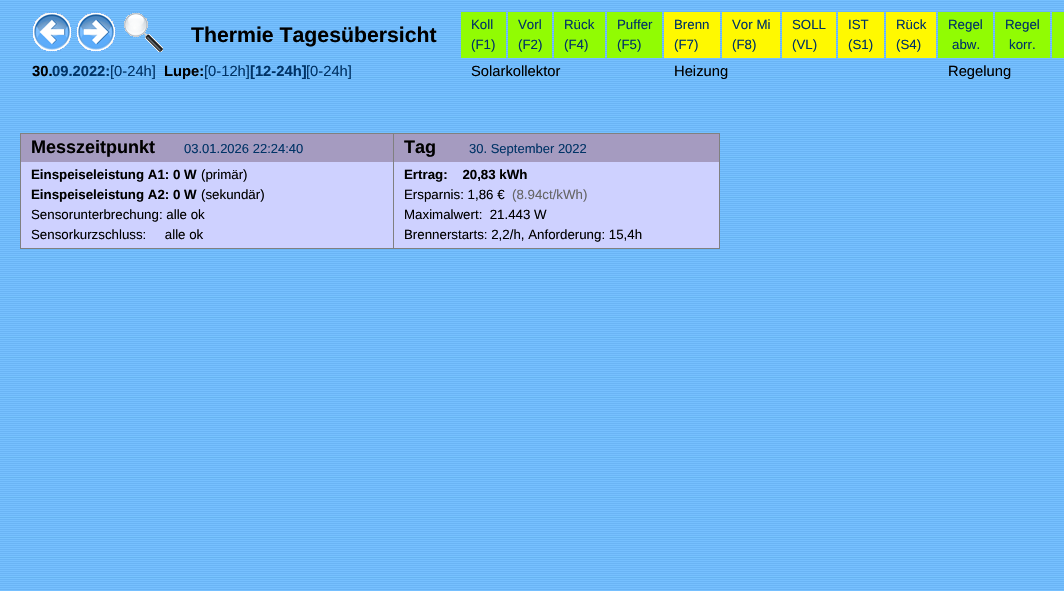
void draw(SkCanvas* canvas) {
	SkPaint fill;
	fill.setAntiAlias(true);
	auto makeFont = [&](const char* family, int weight, float size, bool italic = false) {
		SkFontStyle style(weight, SkFontStyle::kNormal_Width,
			italic ? SkFontStyle::kItalic_Slant : SkFontStyle::kUpright_Slant);
		SkFont result(fontMgr->matchFamilyStyle(family, style), size);
		result.setSubpixel(true);
		return result;
	};
	auto text = [&](const char* s, float x, float y, const SkFont& font) {
		canvas->drawString(s, x, y, font, fill);
	};
	auto box = [&](float l, float t, float r, float b) {
		canvas->drawRect(SkRect::MakeLTRB(l, t, r, b), fill);
	};
	auto picture = [&](const char* path, float l, float t, float r, float b) {
		auto image = SkImages::DeferredFromEncodedData(SkData::MakeFromFileName(path));
		canvas->drawImageRect(image, SkRect::MakeLTRB(l, t, r, b), SkSamplingOptions());
	};
	canvas->clear(0xFFFFFFFF);
	picture("image0.png", 0, 0, 1064, 591);
	picture("image1.png", 32, 12, 72, 52);
	picture("image2.png", 76, 12, 116, 52);
	picture("image3.png", 124, 12, 163, 52);
	fill.setColor(0xFF91FC03);
	box(461, 12, 506, 58);
	box(508, 12, 552, 58);
	box(554, 12, 605, 58);
	box(607, 12, 662, 58);
	fill.setColor(0xFFFFF900);
	box(664, 12, 720, 58);
	box(722, 12, 780, 58);
	box(782, 12, 836, 58);
	box(838, 12, 884, 58);
	box(886, 12, 936, 58);
	fill.setColor(0xFF91FC03);
	box(938, 12, 993, 58);
	box(995, 12, 1050, 58);
	box(1052, 12, 1064, 58);
	fill.setColor(0xFFCED1FF);
	box(21, 162, 719, 248);
	fill.setColor(0xFF808080);
	box(20, 133, 720, 134);
	box(719, 133, 720, 249);
	box(20, 248, 720, 249);
	box(20, 133, 21, 249);
	fill.setColor(0xFFA59BC0);
	box(21, 134, 719, 162);
	fill.setColor(0xFF808080);
	box(393, 133, 394, 249);
	auto font1 = makeFont("Liberation Sans", 700, 21.25f);
	fill.setColor(0xFF000000);
	text("Thermie Tagesübersicht", 191, 42, font1);
	auto font2 = makeFont("Liberation Sans", 400, 13.3f);
	fill.setColor(0xFF003366);
	text("Koll", 471, 29, font2);
	text("(F1)", 471, 49, font2);
	text("Vorl", 518, 29, font2);
	text("(F2)", 518, 49, font2);
	text("Rück", 564, 29, font2);
	text("(F4)", 564, 49, font2);
	text("Puffer", 617, 29, font2);
	text("(F5)", 617, 49, font2);
	text("Brenn", 674, 29, font2);
	text("(F7)", 674, 49, font2);
	text("Vor Mi", 732, 29, font2);
	text("(F8)", 732, 49, font2);
	text("SOLL", 792, 29, font2);
	text("(VL)", 792, 49, font2);
	text("IST", 848, 29, font2);
	text("(S1)", 848, 49, font2);
	text("Rück", 896, 29, font2);
	text("(S4)", 896, 49, font2);
	text("Regel", 948, 29, font2);
	text("abw.", 952, 49, font2);
	text("Regel", 1005, 29, font2);
	text("korr.", 1009, 49, font2);
	auto font3 = makeFont("Liberation Sans", 700, 14.75f);
	fill.setColor(0xFF000000);
	text("30.", 32, 76, font3);
	fill.setColor(0xFF003366);
	text("09.2022:", 52, 76, font3);
	auto font4 = makeFont("Liberation Sans", 400, 14.75f);
	text("[0-24h]", 110, 76, font4);
	fill.setColor(0xFF000000);
	text("Lupe:", 164, 76, font3);
	fill.setColor(0xFF003366);
	text("[0-12h]", 204, 76, font4);
	text("[12-24h]", 250, 76, font3);
	text("[0-24h]", 306, 76, font4);
	fill.setColor(0xFF000000);
	text("Solarkollektor", 471, 76, font4);
	text("Heizung", 674, 76, font4);
	text("Regelung", 948, 76, font4);
	auto font5 = makeFont("Liberation Sans", 700, 18);
	text("Messzeitpunkt", 31, 153, font5);
	auto font6 = makeFont("Liberation Sans", 400, 13);
	fill.setColor(0xFF003366);
	text("03.01.2026 22:24:40", 184, 153, font6);
	fill.setColor(0xFF000000);
	text("Tag", 404, 153, font5);
	fill.setColor(0xFF003366);
	text("30. September 2022", 469, 153, font6);
	auto font7 = makeFont("Liberation Sans", 700, 13.3f);
	fill.setColor(0xFF000000);
	text("Einspeiseleistung A1: 0 W", 31, 179, font7);
	text("(primär)", 201, 179, font2);
	text("Einspeiseleistung A2: 0 W", 31, 199, font7);
	text("(sekundär)", 201, 199, font2);
	text("Sensorunterbrechung: alle ok", 31, 219, font2);
	text("Sensorkurzschluss:     alle ok", 31, 239, font2);
	text("Ertrag:    20,83 kWh", 404, 179, font7);
	text("Ersparnis: 1,86 €", 404, 199, font2);
	fill.setColor(0xFF666666);
	text("(8.94ct/kWh)", 512, 199, font2);
	fill.setColor(0xFF000000);
	text("Maximalwert:  21.443 W", 404, 219, font2);
	text("Brennerstarts: 2,2/h, Anforderung: 15,4h", 404, 239, font2);
}
